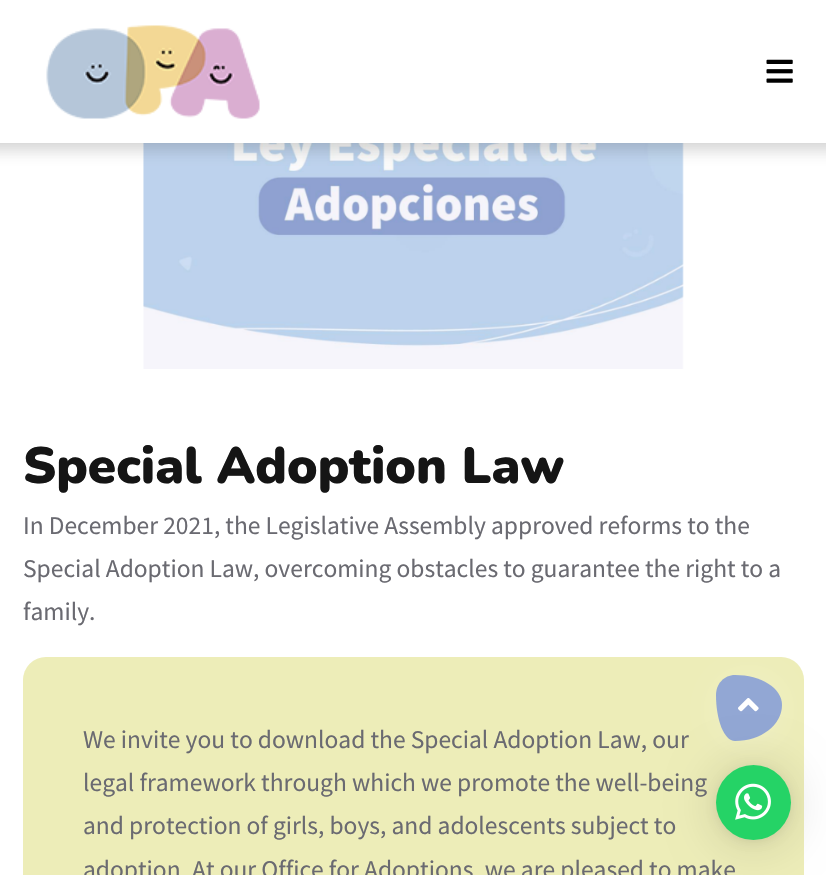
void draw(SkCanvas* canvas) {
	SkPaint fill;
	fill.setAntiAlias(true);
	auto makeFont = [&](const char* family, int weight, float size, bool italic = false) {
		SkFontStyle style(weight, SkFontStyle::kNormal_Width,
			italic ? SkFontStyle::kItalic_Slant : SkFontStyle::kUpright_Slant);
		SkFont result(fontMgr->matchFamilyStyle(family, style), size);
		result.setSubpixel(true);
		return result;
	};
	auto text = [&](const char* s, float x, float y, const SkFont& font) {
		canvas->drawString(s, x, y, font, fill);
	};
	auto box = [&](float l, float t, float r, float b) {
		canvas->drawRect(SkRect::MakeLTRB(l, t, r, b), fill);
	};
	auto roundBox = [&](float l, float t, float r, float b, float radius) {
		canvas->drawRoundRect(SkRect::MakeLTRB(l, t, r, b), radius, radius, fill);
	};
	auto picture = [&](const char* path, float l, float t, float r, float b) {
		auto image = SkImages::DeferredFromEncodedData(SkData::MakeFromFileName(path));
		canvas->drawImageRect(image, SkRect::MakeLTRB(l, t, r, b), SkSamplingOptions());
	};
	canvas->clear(0xFFFFFFFF);
	picture("image2.png", 143, 143, 684, 369);
	fill.setColor(0x36313131);
	fill.setMaskFilter(SkMaskFilter::MakeBlur(kNormal_SkBlurStyle, 7.5f));
	canvas->drawRect(SkRect::MakeLTRB(-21, 8, 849, 150), fill);
	fill.setMaskFilter(nullptr);
	fill.setColor(0xFFFFFFFF);
	box(0, 0, 826, 143);
	picture("image0.png", 46, 25, 260, 119);
	picture("image1.png", 766, 59, 793, 83);
	fill.setColor(0xFFEDEDB8);
	roundBox(23, 657, 804, 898, 23);
	fill.setColor(0x30FFFFFF);
	fill.setMaskFilter(SkMaskFilter::MakeBlur(kNormal_SkBlurStyle, 15));
	canvas->drawRoundRect(SkRect::MakeLTRB(716, 677, 782, 743), 36, 36, fill);
	fill.setMaskFilter(nullptr);
	fill.setColor(0xFF92A7D4);
	canvas->drawPath(SkPathBuilder().moveTo(735, 675).cubicTo(761, 675, 782, 688, 782, 705).cubicTo(782, 725, 761, 741, 735, 741).cubicTo(724, 741, 716, 720, 716, 695).cubicTo(716, 684, 724, 675, 735, 675).close().detach(), fill);
	picture("image3.png", 738, 698, 759, 712);
	fill.setColor(0x29000000);
	fill.setMaskFilter(SkMaskFilter::MakeBlur(kNormal_SkBlurStyle, 24));
	canvas->drawRoundRect(SkRect::MakeLTRB(716, 768, 791, 843), 37.5f, 37.5f, fill);
	fill.setMaskFilter(nullptr);
	fill.setColor(0x0F000000);
	fill.setMaskFilter(SkMaskFilter::MakeBlur(kNormal_SkBlurStyle, 4.5f));
	canvas->drawRoundRect(SkRect::MakeLTRB(716, 767, 791, 842), 37.5f, 37.5f, fill);
	fill.setMaskFilter(nullptr);
	fill.setColor(0xFF25D366);
	canvas->drawCircle(753.5f, 802.5f, 37.5f, fill);
	picture("image4.png", 735, 783, 771, 820);
	auto font1 = makeFont("Nunito", 900, 51);
	fill.setColor(0xFF151515);
	text("Special Adoption Law", 23, 483, font1);
	auto font2 = makeFont("Source Sans Pro", 400, 25.5f);
	fill.setColor(0xFF6A6A71);
	text("In December 2021, the Legislative Assembly approved reforms to the", 23, 534, font2);
	text("Special Adoption Law, overcoming obstacles to guarantee the right to a", 23, 577, font2);
	text("family.", 23, 620, font2);
	text("We invite you to download the Special Adoption Law, our", 83, 748, font2);
	text("legal framework through which we promote the well-being", 83, 791, font2);
	text("and protection of girls, boys, and adolescents subject to", 83, 834, font2);
	text("adoption. At our Office for Adoptions, we are pleased to make", 83, 878, font2);
}
